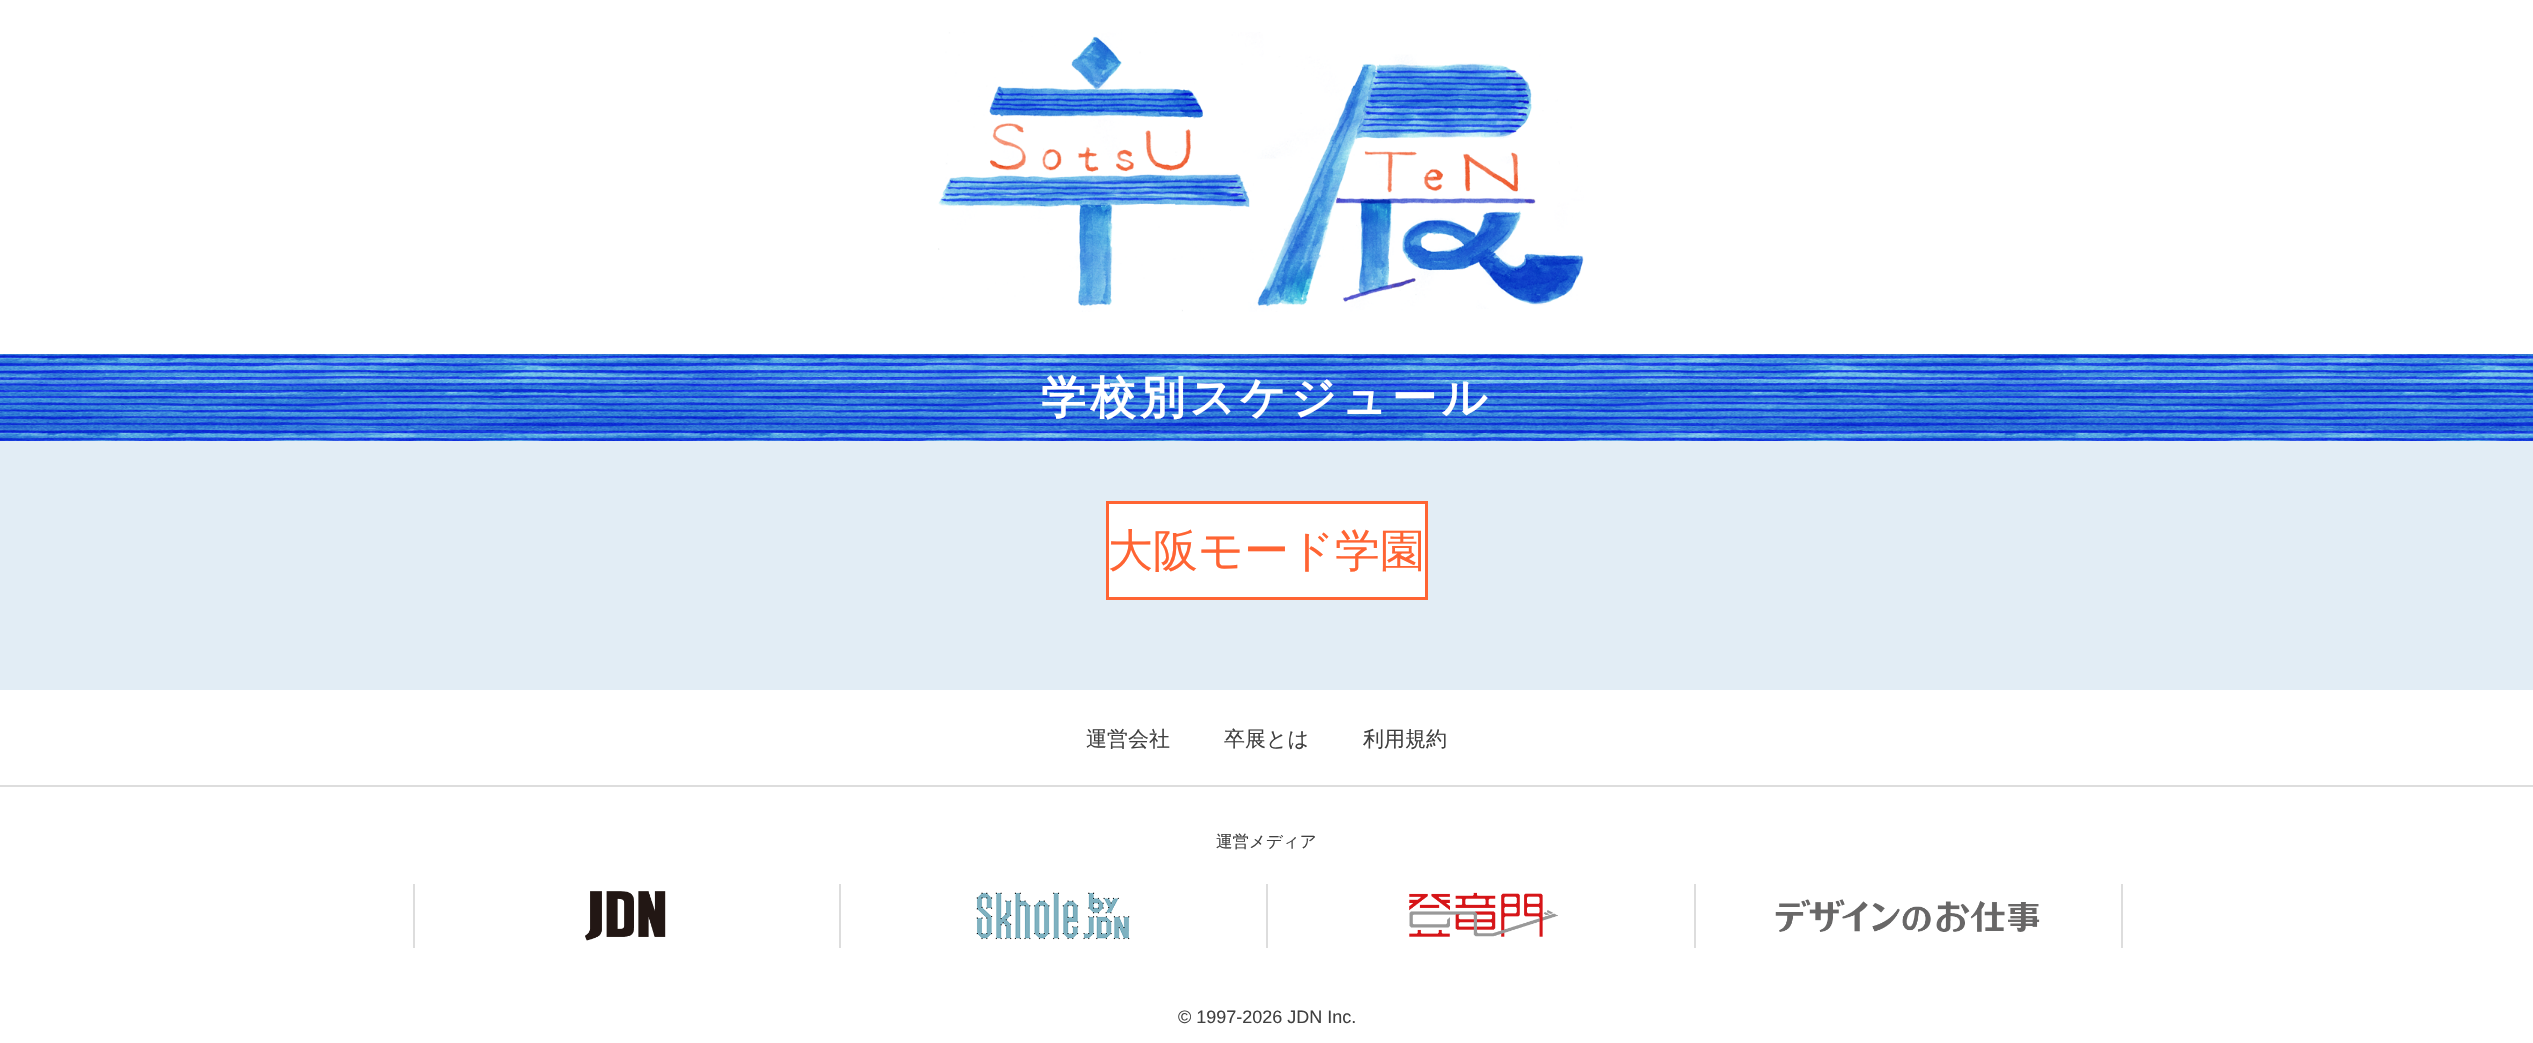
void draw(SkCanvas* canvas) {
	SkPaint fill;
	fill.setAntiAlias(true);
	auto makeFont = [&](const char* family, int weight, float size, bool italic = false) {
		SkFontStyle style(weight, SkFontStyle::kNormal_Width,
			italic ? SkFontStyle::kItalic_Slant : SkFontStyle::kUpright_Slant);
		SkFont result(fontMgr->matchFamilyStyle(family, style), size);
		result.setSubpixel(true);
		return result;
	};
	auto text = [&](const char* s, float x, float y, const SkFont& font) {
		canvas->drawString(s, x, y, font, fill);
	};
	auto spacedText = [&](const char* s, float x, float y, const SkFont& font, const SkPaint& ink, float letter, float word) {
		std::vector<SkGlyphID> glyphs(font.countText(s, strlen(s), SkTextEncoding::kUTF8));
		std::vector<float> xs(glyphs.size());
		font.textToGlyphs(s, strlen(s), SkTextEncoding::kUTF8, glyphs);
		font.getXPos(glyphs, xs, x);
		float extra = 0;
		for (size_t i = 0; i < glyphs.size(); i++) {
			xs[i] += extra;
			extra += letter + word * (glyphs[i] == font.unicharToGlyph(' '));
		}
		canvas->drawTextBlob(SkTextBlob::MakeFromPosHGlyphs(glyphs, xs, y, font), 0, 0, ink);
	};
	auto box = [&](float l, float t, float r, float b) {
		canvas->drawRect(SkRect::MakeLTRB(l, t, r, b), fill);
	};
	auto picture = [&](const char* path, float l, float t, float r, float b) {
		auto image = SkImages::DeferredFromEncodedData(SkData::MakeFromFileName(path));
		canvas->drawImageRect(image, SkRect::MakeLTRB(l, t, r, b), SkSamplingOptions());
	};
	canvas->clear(0xFFE2EDF5);
	fill.setColor(0xFFFFFFFF);
	box(0, 0, 2533, 354);
	picture("image0.png", 938, 32, 1584, 312);
	picture("image1.png", 0, 354, 2533, 441);
	canvas->drawRect(SkRect::MakeLTRB(1107.5f, 502.5f, 1426.5f, 598.5f), fill);
	fill.setStyle(SkPaint::kStroke_Style);
	fill.setStrokeWidth(3);
	fill.setColor(0xFFFF6433);
	canvas->drawRect(SkRect::MakeLTRB(1107.5f, 502.5f, 1426.5f, 598.5f), fill);
	fill.setStyle(SkPaint::kFill_Style);
	fill.setColor(0xFFFFFFFF);
	box(0, 690, 2533, 1043);
	fill.setColor(0xFFDDDDDD);
	box(0, 785, 2533, 787);
	box(839, 884, 841, 948);
	box(413, 884, 415, 948);
	picture("image2.png", 585, 891, 666, 941);
	box(1266, 884, 1268, 948);
	picture("image3.png", 976, 892, 1130, 940);
	box(1694, 884, 1696, 948);
	picture("image4.png", 1409, 892, 1558, 937);
	box(2121, 884, 2123, 948);
	picture("image5.png", 1775, 899, 2040, 932);
	auto font1 = makeFont("WenQuanYi Zen Hei", 700, 45);
	fill.setColor(0xFFFFFFFF);
	spacedText("学校別スケジュール", 1041, 413, font1, fill, 4.5f, 0);
	auto font2 = makeFont("WenQuanYi Zen Hei", 500, 45);
	fill.setColor(0xFFFF6433);
	text("大阪モード学園", 1108, 566, font2);
	auto font3 = makeFont("WenQuanYi Zen Hei", 500, 21);
	fill.setColor(0xFF404040);
	text("運営会社", 1086, 746, font3);
	text("卒展とは", 1224, 746, font3);
	text("利用規約", 1363, 746, font3);
	auto font4 = makeFont("WenQuanYi Zen Hei", 500, 16.5f);
	text("運営メディア", 1216, 847, font4);
	auto font5 = makeFont("Liberation Sans", 400, 18);
	text("© 1997-2026 JDN Inc.", 1178, 1023, font5);
}
